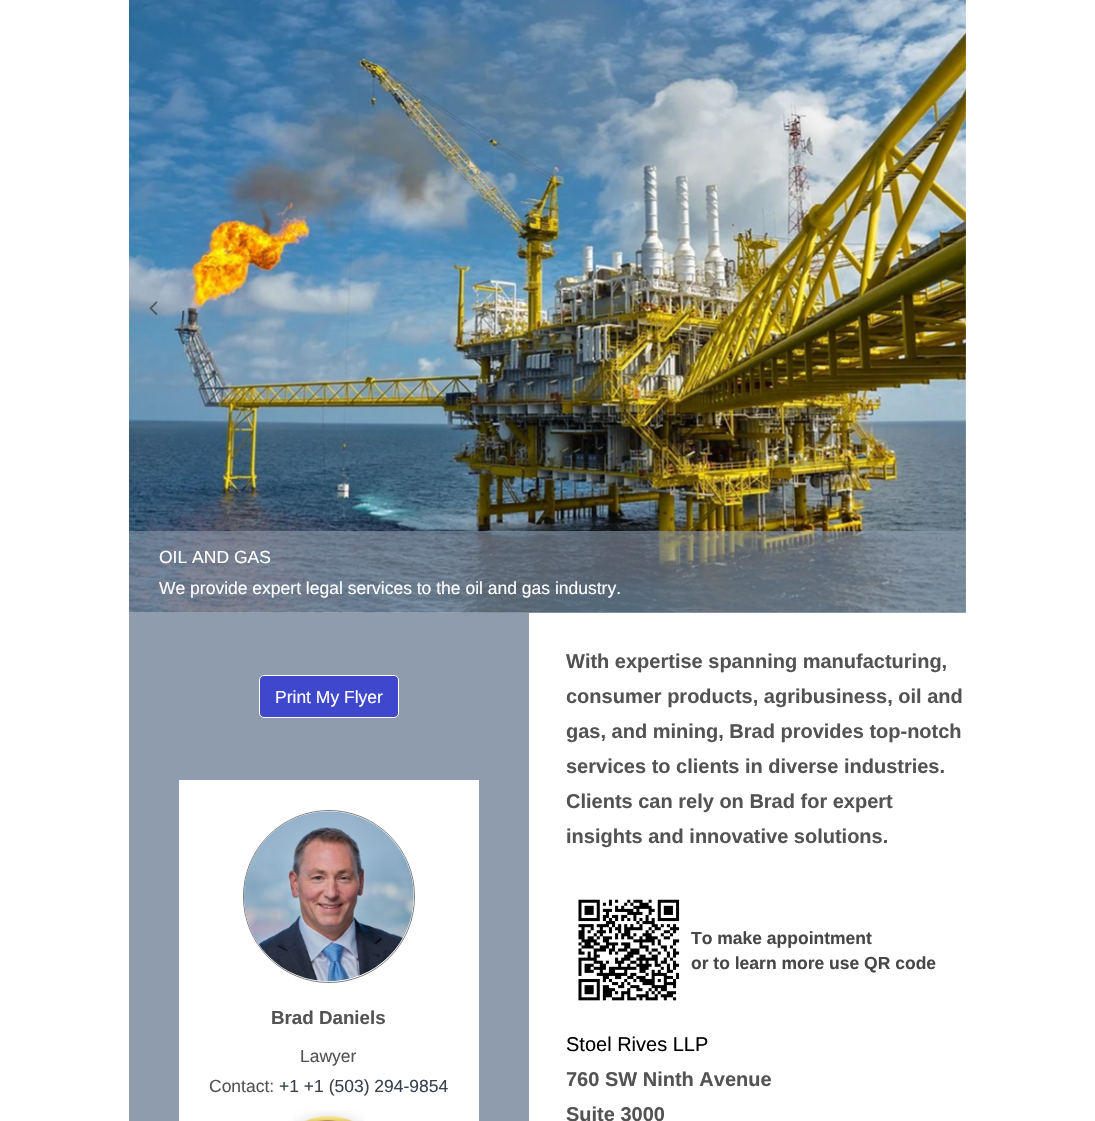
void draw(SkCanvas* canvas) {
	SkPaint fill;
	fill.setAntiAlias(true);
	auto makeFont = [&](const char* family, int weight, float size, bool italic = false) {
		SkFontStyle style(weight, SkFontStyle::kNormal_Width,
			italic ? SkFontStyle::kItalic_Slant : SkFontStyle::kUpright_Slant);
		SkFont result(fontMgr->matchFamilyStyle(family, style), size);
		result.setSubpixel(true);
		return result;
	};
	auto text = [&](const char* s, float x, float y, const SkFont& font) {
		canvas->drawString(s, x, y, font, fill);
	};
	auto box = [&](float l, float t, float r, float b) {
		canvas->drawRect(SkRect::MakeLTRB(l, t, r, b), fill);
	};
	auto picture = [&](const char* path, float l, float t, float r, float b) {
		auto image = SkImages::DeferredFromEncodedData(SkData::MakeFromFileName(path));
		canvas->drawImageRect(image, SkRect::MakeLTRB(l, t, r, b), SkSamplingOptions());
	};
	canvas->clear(0xFFFFFFFF);
	picture("image2.png", 129, 0, 966, 613);
	picture("image0.png", 149, 301, 158, 316);
	picture("image1.png", 938, 301, 946, 315);
	fill.setColor(0x948F9CAE);
	box(129, 531, 966, 613);
	fill.setColor(0xFF8F9CAE);
	box(129, 613, 529, 1121);
	fill.setColor(0xFF3F48CC);
	canvas->drawRoundRect(SkRect::MakeLTRB(259.5f, 675.5f, 398.5f, 717.5f), 4.5f, 4.5f, fill);
	fill.setStyle(SkPaint::kStroke_Style);
	fill.setStrokeWidth(1);
	fill.setColor(0xFFFFFFFF);
	canvas->drawRoundRect(SkRect::MakeLTRB(259.5f, 675.5f, 398.5f, 717.5f), 4.5f, 4.5f, fill);
	fill.setStyle(SkPaint::kFill_Style);
	box(179, 780, 479, 1121);
	fill.setStyle(SkPaint::kStroke_Style);
	fill.setColor(0xFF7E7F83);
	canvas->drawRoundRect(SkRect::MakeLTRB(243.5f, 810.5f, 414.5f, 982.5f), 85.5f, 85.5f, fill);
	picture("image3.png", 243, 811, 414, 982);
	picture("image4.png", 293, 1110, 364, 1121);
	picture("image5.png", 578, 899, 680, 1001);
	auto font1 = makeFont("Liberation Sans", 400, 17.5f);
	fill.setStyle(SkPaint::kFill_Style);
	fill.setColor(0xFFFFFFFF);
	text("OIL AND GAS", 159, 563, font1);
	text("We provide expert legal services to the oil and gas industry.", 159, 594, font1);
	text("Print My Flyer", 275, 703, font1);
	auto font2 = makeFont("Liberation Sans", 700, 18.75f);
	fill.setColor(0xFF535353);
	text("Brad Daniels", 271, 1024, font2);
	text("Lawyer", 300, 1062, font1);
	text("Contact:", 209, 1092, font1);
	fill.setColor(0xFF37404D);
	text("+1 +1 (503) 294-9854", 279, 1092, font1);
	auto font3 = makeFont("Liberation Sans", 700, 20);
	fill.setColor(0xFF535353);
	text("With expertise spanning manufacturing,", 566, 668, font3);
	text("consumer products, agribusiness, oil and", 566, 703, font3);
	text("gas, and mining, Brad provides top-notch", 566, 738, font3);
	text("services to clients in diverse industries.", 566, 773, font3);
	text("Clients can rely on Brad for expert", 566, 808, font3);
	text("insights and innovative solutions.", 566, 843, font3);
	auto font4 = makeFont("Liberation Sans", 700, 17.5f);
	fill.setColor(0xFF474747);
	text("To make appointment", 691, 944, font4);
	text("or to learn more use QR code", 691, 969, font4);
	auto font5 = makeFont("Liberation Sans", 400, 20);
	fill.setColor(0xFF000000);
	text("Stoel Rives LLP", 566, 1051, font5);
	fill.setColor(0xFF535353);
	text("760 SW Ninth Avenue", 566, 1086, font3);
	text("Suite 3000", 566, 1121, font3);
}
